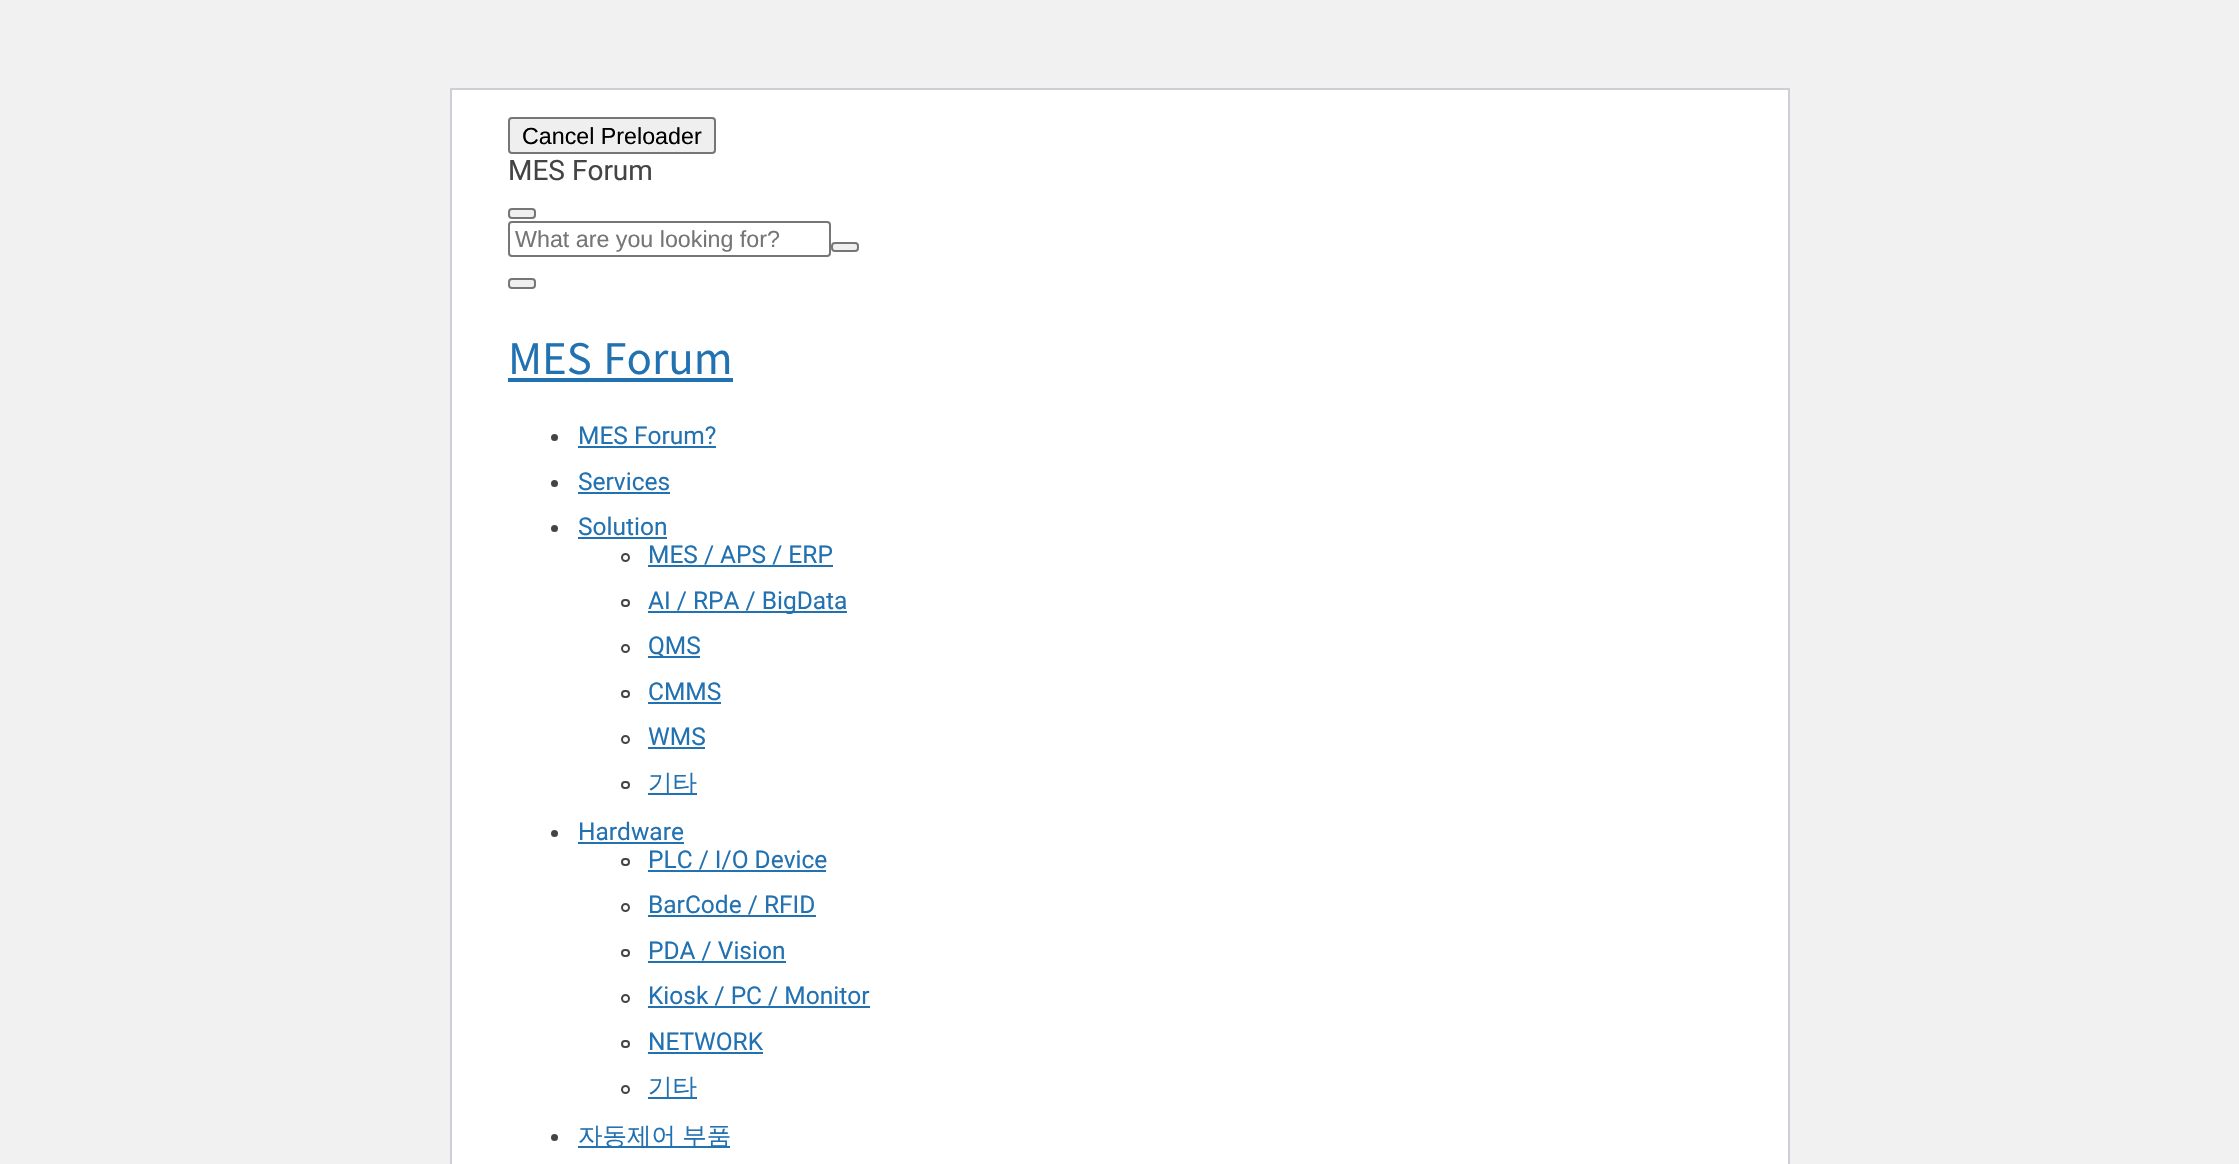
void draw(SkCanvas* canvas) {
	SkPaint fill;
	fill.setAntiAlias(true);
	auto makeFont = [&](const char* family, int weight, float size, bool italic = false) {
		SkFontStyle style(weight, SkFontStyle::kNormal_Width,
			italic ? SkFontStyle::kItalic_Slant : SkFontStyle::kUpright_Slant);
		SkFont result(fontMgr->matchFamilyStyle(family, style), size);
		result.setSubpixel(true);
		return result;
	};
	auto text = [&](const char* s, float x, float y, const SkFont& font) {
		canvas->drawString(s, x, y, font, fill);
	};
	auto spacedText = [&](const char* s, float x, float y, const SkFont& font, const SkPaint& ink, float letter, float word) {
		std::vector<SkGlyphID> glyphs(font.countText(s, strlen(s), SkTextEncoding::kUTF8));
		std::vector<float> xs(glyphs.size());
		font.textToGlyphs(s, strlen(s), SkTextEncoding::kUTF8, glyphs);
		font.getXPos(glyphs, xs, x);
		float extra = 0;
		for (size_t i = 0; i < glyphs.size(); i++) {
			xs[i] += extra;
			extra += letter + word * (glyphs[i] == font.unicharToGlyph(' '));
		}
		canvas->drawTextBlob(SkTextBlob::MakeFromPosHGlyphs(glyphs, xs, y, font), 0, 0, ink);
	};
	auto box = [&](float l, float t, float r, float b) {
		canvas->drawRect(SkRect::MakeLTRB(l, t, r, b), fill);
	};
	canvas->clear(0xFFF1F1F1);
	fill.setColor(0xFFFFFFFF);
	canvas->drawRect(SkRect::MakeLTRB(451, 89, 1789, 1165), fill);
	fill.setStyle(SkPaint::kStroke_Style);
	fill.setStrokeWidth(2);
	fill.setColor(0xFFCCD0D4);
	canvas->drawRect(SkRect::MakeLTRB(451, 89, 1789, 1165), fill);
	fill.setStyle(SkPaint::kFill_Style);
	fill.setColor(0xFFEFEFEF);
	canvas->drawRoundRect(SkRect::MakeLTRB(509, 118, 715, 153), 3, 3, fill);
	fill.setStyle(SkPaint::kStroke_Style);
	fill.setColor(0xFF767676);
	canvas->drawRoundRect(SkRect::MakeLTRB(509, 118, 715, 153), 3, 3, fill);
	fill.setStyle(SkPaint::kFill_Style);
	fill.setColor(0xFFEFEFEF);
	canvas->drawRoundRect(SkRect::MakeLTRB(509, 209, 535, 218), 3, 3, fill);
	fill.setStyle(SkPaint::kStroke_Style);
	fill.setColor(0xFF767676);
	canvas->drawRoundRect(SkRect::MakeLTRB(509, 209, 535, 218), 3, 3, fill);
	canvas->drawRoundRect(SkRect::MakeLTRB(509, 222, 830, 256), 3, 3, fill);
	fill.setStyle(SkPaint::kFill_Style);
	fill.setColor(0xFFEFEFEF);
	canvas->drawRoundRect(SkRect::MakeLTRB(832, 243, 858, 251), 3, 3, fill);
	fill.setStyle(SkPaint::kStroke_Style);
	fill.setColor(0xFF767676);
	canvas->drawRoundRect(SkRect::MakeLTRB(832, 243, 858, 251), 3, 3, fill);
	fill.setStyle(SkPaint::kFill_Style);
	fill.setColor(0xFFEFEFEF);
	canvas->drawRoundRect(SkRect::MakeLTRB(509, 279, 535, 288), 3, 3, fill);
	fill.setStyle(SkPaint::kStroke_Style);
	fill.setColor(0xFF767676);
	canvas->drawRoundRect(SkRect::MakeLTRB(509, 279, 535, 288), 3, 3, fill);
	fill.setStyle(SkPaint::kFill_Style);
	fill.setColor(0xFF2271B1);
	box(508, 378, 733, 382);
	fill.setColor(0xFF444444);
	canvas->drawCircle(554.5f, 437.5f, 3.5f, fill);
	fill.setColor(0xFF2271B1);
	box(578, 446, 716, 448);
	fill.setColor(0xFF444444);
	canvas->drawCircle(554.5f, 483.5f, 3.5f, fill);
	fill.setColor(0xFF2271B1);
	box(578, 492, 670, 494);
	fill.setColor(0xFF444444);
	canvas->drawCircle(554.5f, 528.5f, 3.5f, fill);
	fill.setColor(0xFF2271B1);
	box(578, 537, 667, 539);
	fill.setStyle(SkPaint::kStroke_Style);
	fill.setColor(0xFF444444);
	canvas->drawCircle(625.5f, 557.5f, 3.5f, fill);
	fill.setStyle(SkPaint::kFill_Style);
	fill.setColor(0xFF2271B1);
	box(648, 565, 833, 567);
	fill.setStyle(SkPaint::kStroke_Style);
	fill.setColor(0xFF444444);
	canvas->drawRoundRect(SkRect::MakeLTRB(622, 600, 629, 606), 3, 3, fill);
	fill.setStyle(SkPaint::kFill_Style);
	fill.setColor(0xFF2271B1);
	box(648, 611, 847, 613);
	fill.setStyle(SkPaint::kStroke_Style);
	fill.setColor(0xFF444444);
	canvas->drawCircle(625.5f, 648.5f, 3.5f, fill);
	fill.setStyle(SkPaint::kFill_Style);
	fill.setColor(0xFF2271B1);
	box(648, 656, 700, 658);
	fill.setStyle(SkPaint::kStroke_Style);
	fill.setColor(0xFF444444);
	canvas->drawRoundRect(SkRect::MakeLTRB(622, 691, 629, 697), 3, 3, fill);
	fill.setStyle(SkPaint::kFill_Style);
	fill.setColor(0xFF2271B1);
	box(648, 702, 721, 704);
	fill.setStyle(SkPaint::kStroke_Style);
	fill.setColor(0xFF444444);
	canvas->drawCircle(625.5f, 739.5f, 3.5f, fill);
	fill.setStyle(SkPaint::kFill_Style);
	fill.setColor(0xFF2271B1);
	box(648, 747, 705, 749);
	fill.setStyle(SkPaint::kStroke_Style);
	fill.setColor(0xFF444444);
	canvas->drawRoundRect(SkRect::MakeLTRB(622, 782, 629, 788), 3, 3, fill);
	fill.setStyle(SkPaint::kFill_Style);
	fill.setColor(0xFF2271B1);
	box(648, 793, 697, 795);
	fill.setColor(0xFF444444);
	canvas->drawCircle(554.5f, 833.5f, 3.5f, fill);
	fill.setColor(0xFF2271B1);
	box(578, 842, 684, 844);
	fill.setStyle(SkPaint::kStroke_Style);
	fill.setColor(0xFF444444);
	canvas->drawRoundRect(SkRect::MakeLTRB(622, 859, 629, 865), 3, 3, fill);
	fill.setStyle(SkPaint::kFill_Style);
	fill.setColor(0xFF2271B1);
	box(648, 870, 826, 872);
	fill.setStyle(SkPaint::kStroke_Style);
	fill.setColor(0xFF444444);
	canvas->drawCircle(625.5f, 907.5f, 3.5f, fill);
	fill.setStyle(SkPaint::kFill_Style);
	fill.setColor(0xFF2271B1);
	box(648, 915, 816, 917);
	fill.setStyle(SkPaint::kStroke_Style);
	fill.setColor(0xFF444444);
	canvas->drawRoundRect(SkRect::MakeLTRB(622, 950, 629, 956), 3, 3, fill);
	fill.setStyle(SkPaint::kFill_Style);
	fill.setColor(0xFF2271B1);
	box(648, 961, 786, 963);
	fill.setStyle(SkPaint::kStroke_Style);
	fill.setColor(0xFF444444);
	canvas->drawCircle(625.5f, 998.5f, 3.5f, fill);
	fill.setStyle(SkPaint::kFill_Style);
	fill.setColor(0xFF2271B1);
	box(648, 1006, 870, 1008);
	fill.setStyle(SkPaint::kStroke_Style);
	fill.setColor(0xFF444444);
	canvas->drawRoundRect(SkRect::MakeLTRB(622, 1041, 629, 1047), 3, 3, fill);
	fill.setStyle(SkPaint::kFill_Style);
	fill.setColor(0xFF2271B1);
	box(648, 1052, 763, 1054);
	fill.setStyle(SkPaint::kStroke_Style);
	fill.setColor(0xFF444444);
	canvas->drawCircle(625.5f, 1089.5f, 3.5f, fill);
	fill.setStyle(SkPaint::kFill_Style);
	fill.setColor(0xFF2271B1);
	box(648, 1097, 697, 1099);
	fill.setColor(0xFF444444);
	canvas->drawCircle(554.5f, 1137.5f, 3.5f, fill);
	fill.setColor(0xFF2271B1);
	box(578, 1146, 730, 1148);
	auto font1 = makeFont("Liberation Sans", 400, 23.25f);
	fill.setColor(0xFF000000);
	text("Cancel Preloader", 522, 144, font1);
	auto font2 = makeFont("Roboto", 400, 28);
	fill.setColor(0xFF444444);
	text("MES Forum", 508, 180, font2);
	fill.setColor(0xFF757575);
	text("What are you looking for?", 515, 247, font1);
	auto font3 = makeFont("Noto Sans KR", 100, 42);
	fill.setColor(0xFF2271B1);
	spacedText("MES Forum", 508, 374, font3, fill, 0, 2);
	auto font4 = makeFont("Roboto", 400, 24.5f);
	text("MES Forum?", 578, 444, font4);
	text("Services", 578, 490, font4);
	text("Solution", 578, 535, font4);
	text("MES / APS / ERP", 648, 563, font4);
	text("AI / RPA / BigData", 648, 609, font4);
	text("QMS", 648, 654, font4);
	text("CMMS", 648, 700, font4);
	text("WMS", 648, 745, font4);
	auto font5 = makeFont("WenQuanYi Zen Hei", 500, 24.5f);
	text("기타", 648, 791, font5);
	text("Hardware", 578, 840, font4);
	text("PLC / I/O Device", 648, 868, font4);
	text("BarCode / RFID", 648, 913, font4);
	text("PDA / Vision", 648, 959, font4);
	text("Kiosk / PC / Monitor", 648, 1004, font4);
	text("NETWORK", 648, 1050, font4);
	text("기타", 648, 1095, font5);
	spacedText("자동제어 부품", 578, 1144, font5, fill, 0, -1);
}
